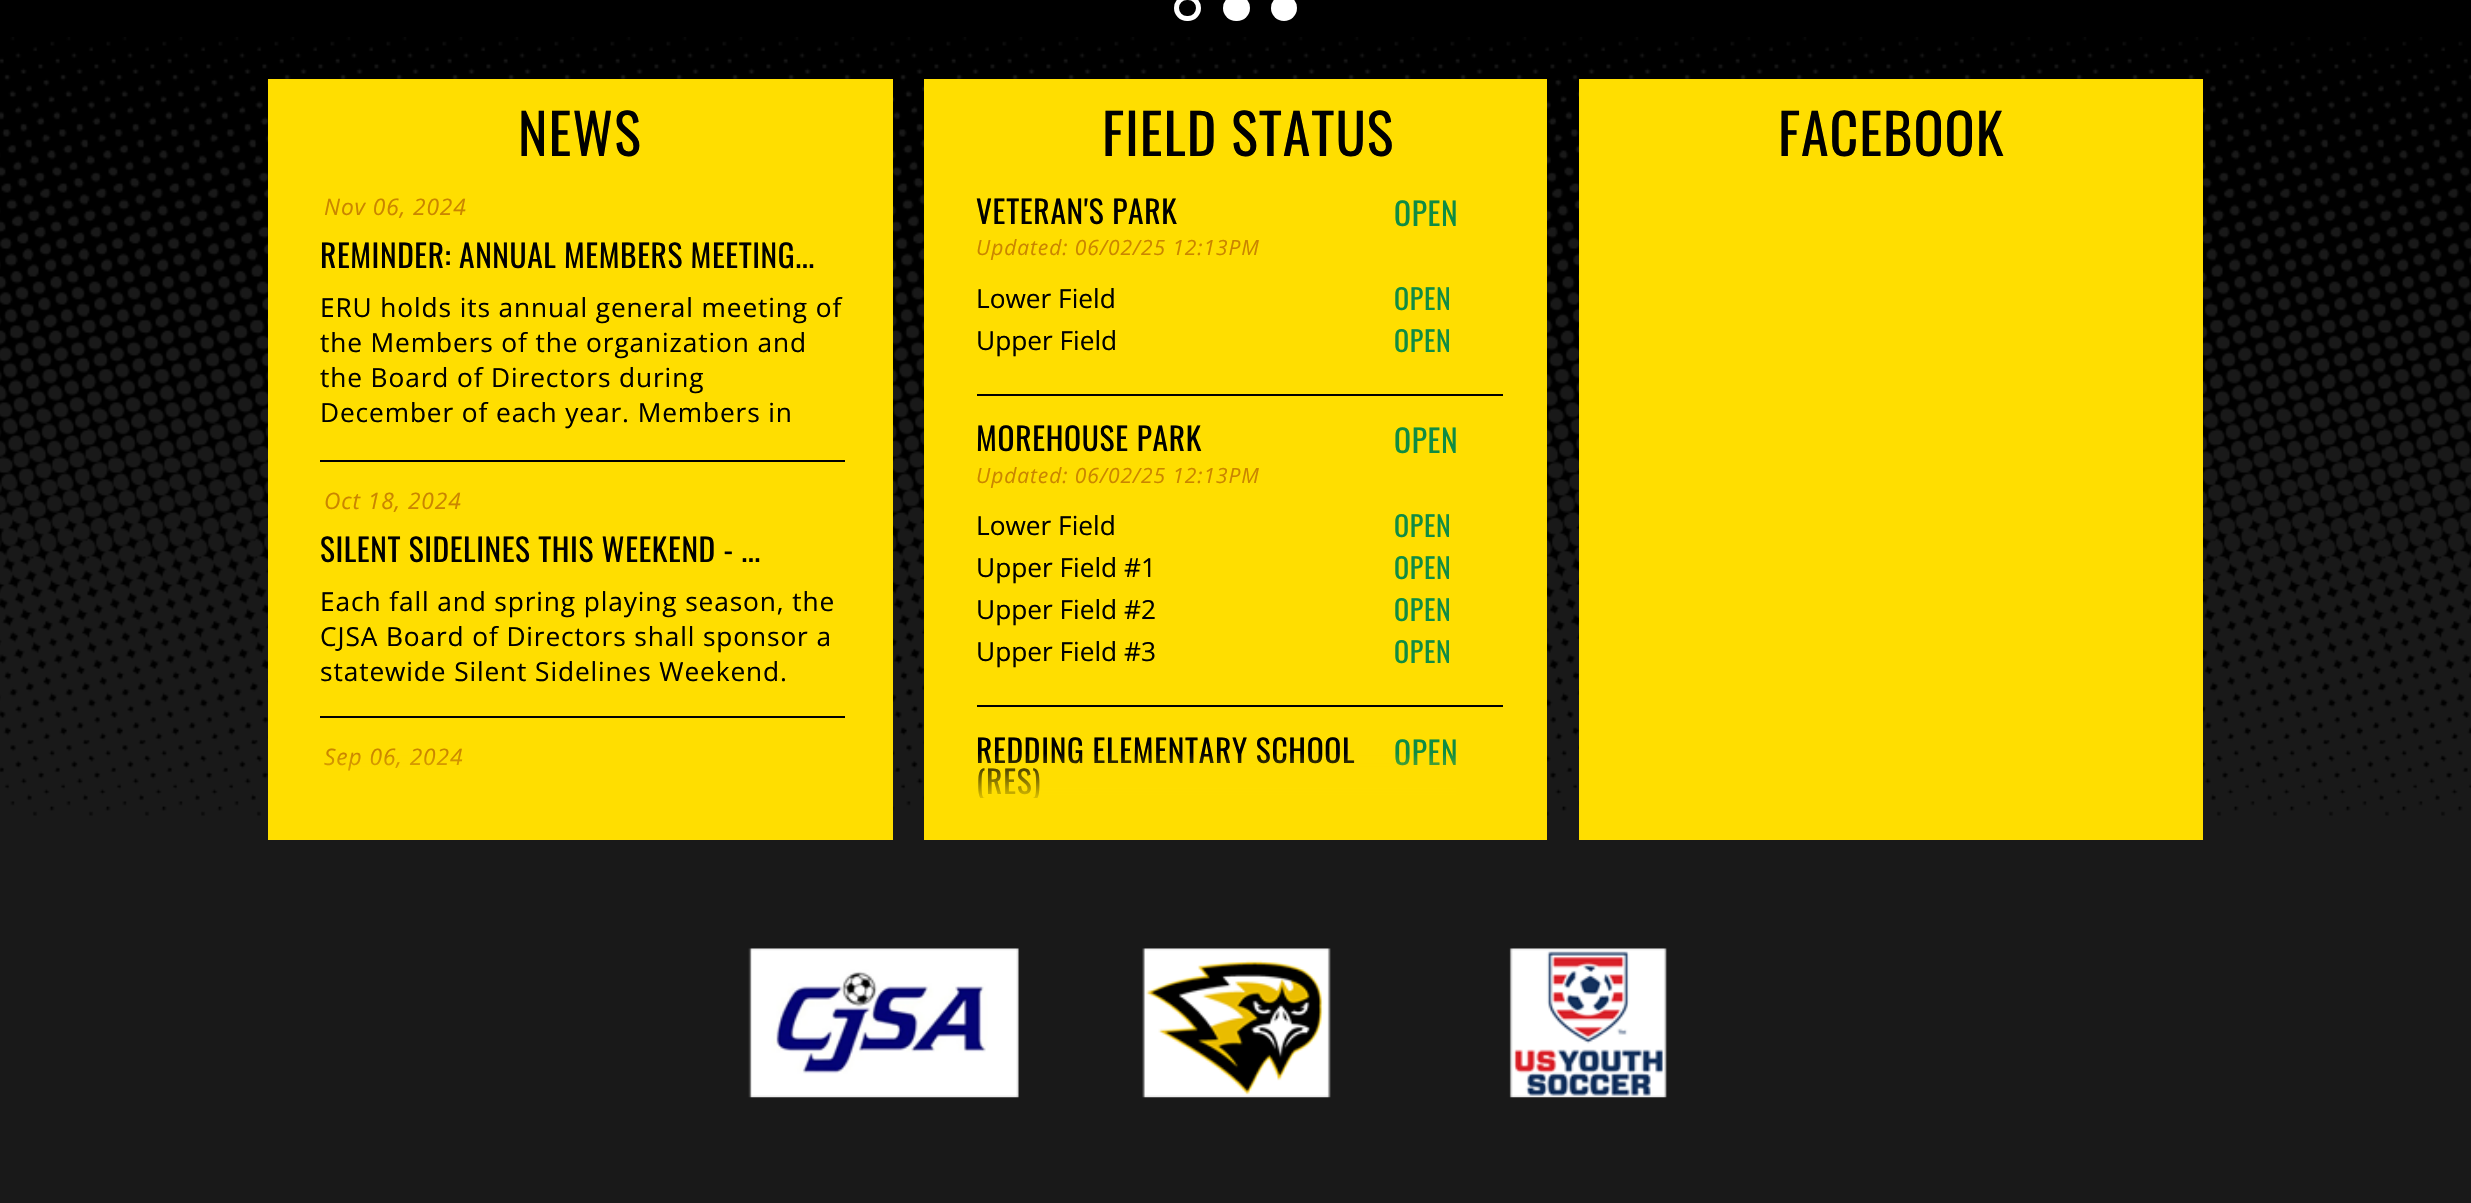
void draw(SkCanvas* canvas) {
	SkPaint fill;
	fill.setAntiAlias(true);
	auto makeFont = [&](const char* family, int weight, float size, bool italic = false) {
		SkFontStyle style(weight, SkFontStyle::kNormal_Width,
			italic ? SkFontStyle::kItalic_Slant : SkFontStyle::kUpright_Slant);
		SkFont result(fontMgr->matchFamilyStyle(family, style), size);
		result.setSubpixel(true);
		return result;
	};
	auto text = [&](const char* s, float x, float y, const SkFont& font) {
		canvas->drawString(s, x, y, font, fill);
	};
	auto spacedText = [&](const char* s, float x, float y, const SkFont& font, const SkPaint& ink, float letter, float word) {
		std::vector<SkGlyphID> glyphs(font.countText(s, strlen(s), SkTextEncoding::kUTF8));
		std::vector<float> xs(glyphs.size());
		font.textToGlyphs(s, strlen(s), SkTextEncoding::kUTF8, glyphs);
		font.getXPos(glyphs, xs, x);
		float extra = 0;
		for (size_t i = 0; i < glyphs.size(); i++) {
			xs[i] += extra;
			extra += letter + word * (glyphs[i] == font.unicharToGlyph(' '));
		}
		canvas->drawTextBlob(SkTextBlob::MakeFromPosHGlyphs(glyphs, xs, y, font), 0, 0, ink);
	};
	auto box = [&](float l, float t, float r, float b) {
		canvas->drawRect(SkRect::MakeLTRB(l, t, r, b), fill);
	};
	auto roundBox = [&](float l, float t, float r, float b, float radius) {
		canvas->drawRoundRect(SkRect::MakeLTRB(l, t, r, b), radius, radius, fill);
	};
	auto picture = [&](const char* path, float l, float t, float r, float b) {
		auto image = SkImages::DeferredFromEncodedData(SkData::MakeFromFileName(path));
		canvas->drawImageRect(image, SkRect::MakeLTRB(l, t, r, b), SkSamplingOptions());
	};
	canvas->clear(0xFF000000);
	picture("image0.png", 0, 37, 2471, 838);
	fill.setStyle(SkPaint::kStroke_Style);
	fill.setStrokeWidth(5);
	fill.setColor(0xFFFFFFFF);
	canvas->drawRoundRect(SkRect::MakeLTRB(1176.5f, -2.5f, 1198.5f, 18.5f), 10.5f, 10.5f, fill);
	fill.setStyle(SkPaint::kFill_Style);
	roundBox(1223, -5, 1250, 21, 13);
	canvas->drawCircle(1284, 8, 13, fill);
	fill.setColor(0xFF191919);
	box(0, 838, 2471, 1203);
	fill.setColor(0xFFFFDE00);
	box(268, 79, 893, 840);
	fill.setColor(0xFF000000);
	box(320, 460, 845, 462);
	box(320, 716, 845, 718);
	fill.setColor(0xFFFFDE00);
	box(924, 79, 1547, 840);
	fill.setColor(0xFF000000);
	box(977, 394, 1503, 396);
	box(977, 705, 1503, 707);
	fill.setColor(0xFFFFDE00);
	box(1579, 79, 2203, 840);
	picture("image1.png", 748, 948, 1019, 1098);
	picture("image2.png", 1142, 948, 1331, 1098);
	picture("image3.png", 1509, 948, 1667, 1098);
	auto font1 = makeFont("Oswald", 400, 56);
	fill.setColor(0xFF000000);
	spacedText("NEWS", 518, 156, font1, fill, 1, 0);
	auto font2 = makeFont("Open Sans", 400, 22.75f, true);
	fill.setColor(0xFFCA8500);
	spacedText("Nov 06, 2024", 324, 215, font2, fill, 0.9f, 0);
	auto font3 = makeFont("Oswald", 400, 31.5f);
	fill.setColor(0xFF000000);
	spacedText("REMINDER: ANNUAL MEMBERS MEETING...", 320, 268, font3, fill, 0.55f, 0);
	auto font4 = makeFont("Open Sans", 400, 26.25f);
	spacedText("ERU holds its annual general meeting of", 320, 317, font4, fill, 0.9f, 0);
	spacedText("the Members of the organization and", 320, 352, font4, fill, 0.9f, 0);
	spacedText("the Board of Directors during", 320, 387, font4, fill, 0.9f, 0);
	spacedText("December of each year. Members in", 320, 422, font4, fill, 0.9f, 0);
	fill.setColor(0xFFCA8500);
	spacedText("Oct 18, 2024", 324, 509, font2, fill, 0.9f, 0);
	fill.setColor(0xFF000000);
	spacedText("SILENT SIDELINES THIS WEEKEND - ...", 320, 562, font3, fill, 0.55f, 0);
	spacedText("Each fall and spring playing season, the", 320, 611, font4, fill, 0.9f, 0);
	spacedText("CJSA Board of Directors shall sponsor a", 320, 646, font4, fill, 0.9f, 0);
	spacedText("statewide Silent Sidelines Weekend.", 320, 681, font4, fill, 0.9f, 0);
	fill.setColor(0xFFCA8500);
	spacedText("Sep 06, 2024", 324, 765, font2, fill, 0.9f, 0);
	{
		const SkColor colors[] = {0x00FFDE00, 0xFFFFDE00, 0xFFFFDE00};
		const float stops[] = {0, 0.6f, 1};
		const SkPoint ends[] = {{561, 753}, {561, 840}};
		fill.setShader(SkGradientShader::MakeLinear(ends, colors, stops, 3, SkTileMode::kClamp));
		fill.setAlpha(255);
	}
	box(324, 755, 462, 771);
	fill.setShader(nullptr);
	fill.setColor(0xFF000000);
	spacedText("FIELD STATUS", 1102, 156, font1, fill, 1, 0);
	spacedText("VETERAN'S PARK", 976, 224, font3, fill, 0.7f, 0);
	fill.setColor(0xFF108C43);
	spacedText("OPEN", 1394, 226, font3, fill, 0.7f, 0);
	auto font5 = makeFont("Open Sans", 400, 21, true);
	fill.setColor(0xFFCA8500);
	spacedText("Updated: 06/02/25 12:13PM", 976, 255, font5, fill, 0.9f, 0);
	fill.setColor(0xFF000000);
	text("Lower Field", 976, 308, font4);
	auto font6 = makeFont("Oswald", 400, 28);
	fill.setColor(0xFF108C43);
	spacedText("OPEN", 1394, 310, font6, fill, 0.7f, 0);
	fill.setColor(0xFF000000);
	text("Upper Field", 976, 350, font4);
	fill.setColor(0xFF108C43);
	spacedText("OPEN", 1394, 352, font6, fill, 0.7f, 0);
	fill.setColor(0xFF000000);
	spacedText("MOREHOUSE PARK", 976, 451, font3, fill, 0.7f, 0);
	fill.setColor(0xFF108C43);
	spacedText("OPEN", 1394, 453, font3, fill, 0.7f, 0);
	fill.setColor(0xFFCA8500);
	spacedText("Updated: 06/02/25 12:13PM", 976, 483, font5, fill, 0.9f, 0);
	fill.setColor(0xFF000000);
	text("Lower Field", 976, 535, font4);
	fill.setColor(0xFF108C43);
	spacedText("OPEN", 1394, 537, font6, fill, 0.7f, 0);
	fill.setColor(0xFF000000);
	text("Upper Field #1", 976, 577, font4);
	fill.setColor(0xFF108C43);
	spacedText("OPEN", 1394, 579, font6, fill, 0.7f, 0);
	fill.setColor(0xFF000000);
	text("Upper Field #2", 976, 619, font4);
	fill.setColor(0xFF108C43);
	spacedText("OPEN", 1394, 621, font6, fill, 0.7f, 0);
	fill.setColor(0xFF000000);
	text("Upper Field #3", 976, 661, font4);
	fill.setColor(0xFF108C43);
	spacedText("OPEN", 1394, 663, font6, fill, 0.7f, 0);
	fill.setColor(0xFF000000);
	spacedText("REDDING ELEMENTARY SCHOOL", 976, 763, font3, fill, 0.7f, 0);
	canvas->save();
	canvas->clipRect(SkRect::MakeLTRB(977, 733, 1503, 798));
	spacedText("(RES)", 976, 794, font3, fill, 0.7f, 0);
	canvas->restore();
	fill.setColor(0xFF108C43);
	spacedText("OPEN", 1394, 765, font3, fill, 0.7f, 0);
	{
		const SkColor colors[] = {0x00FFDE00, 0xFFFFDE00, 0xFFFFDE00};
		const float stops[] = {0, 0.6f, 1};
		const SkPoint ends[] = {{1216, 753}, {1216, 840}};
		fill.setShader(SkGradientShader::MakeLinear(ends, colors, stops, 3, SkTileMode::kClamp));
		fill.setAlpha(255);
	}
	box(977, 754, 1456, 798);
	fill.setShader(nullptr);
	fill.setColor(0xFF000000);
	spacedText("FACEBOOK", 1778, 156, font1, fill, 1, 0);
}
